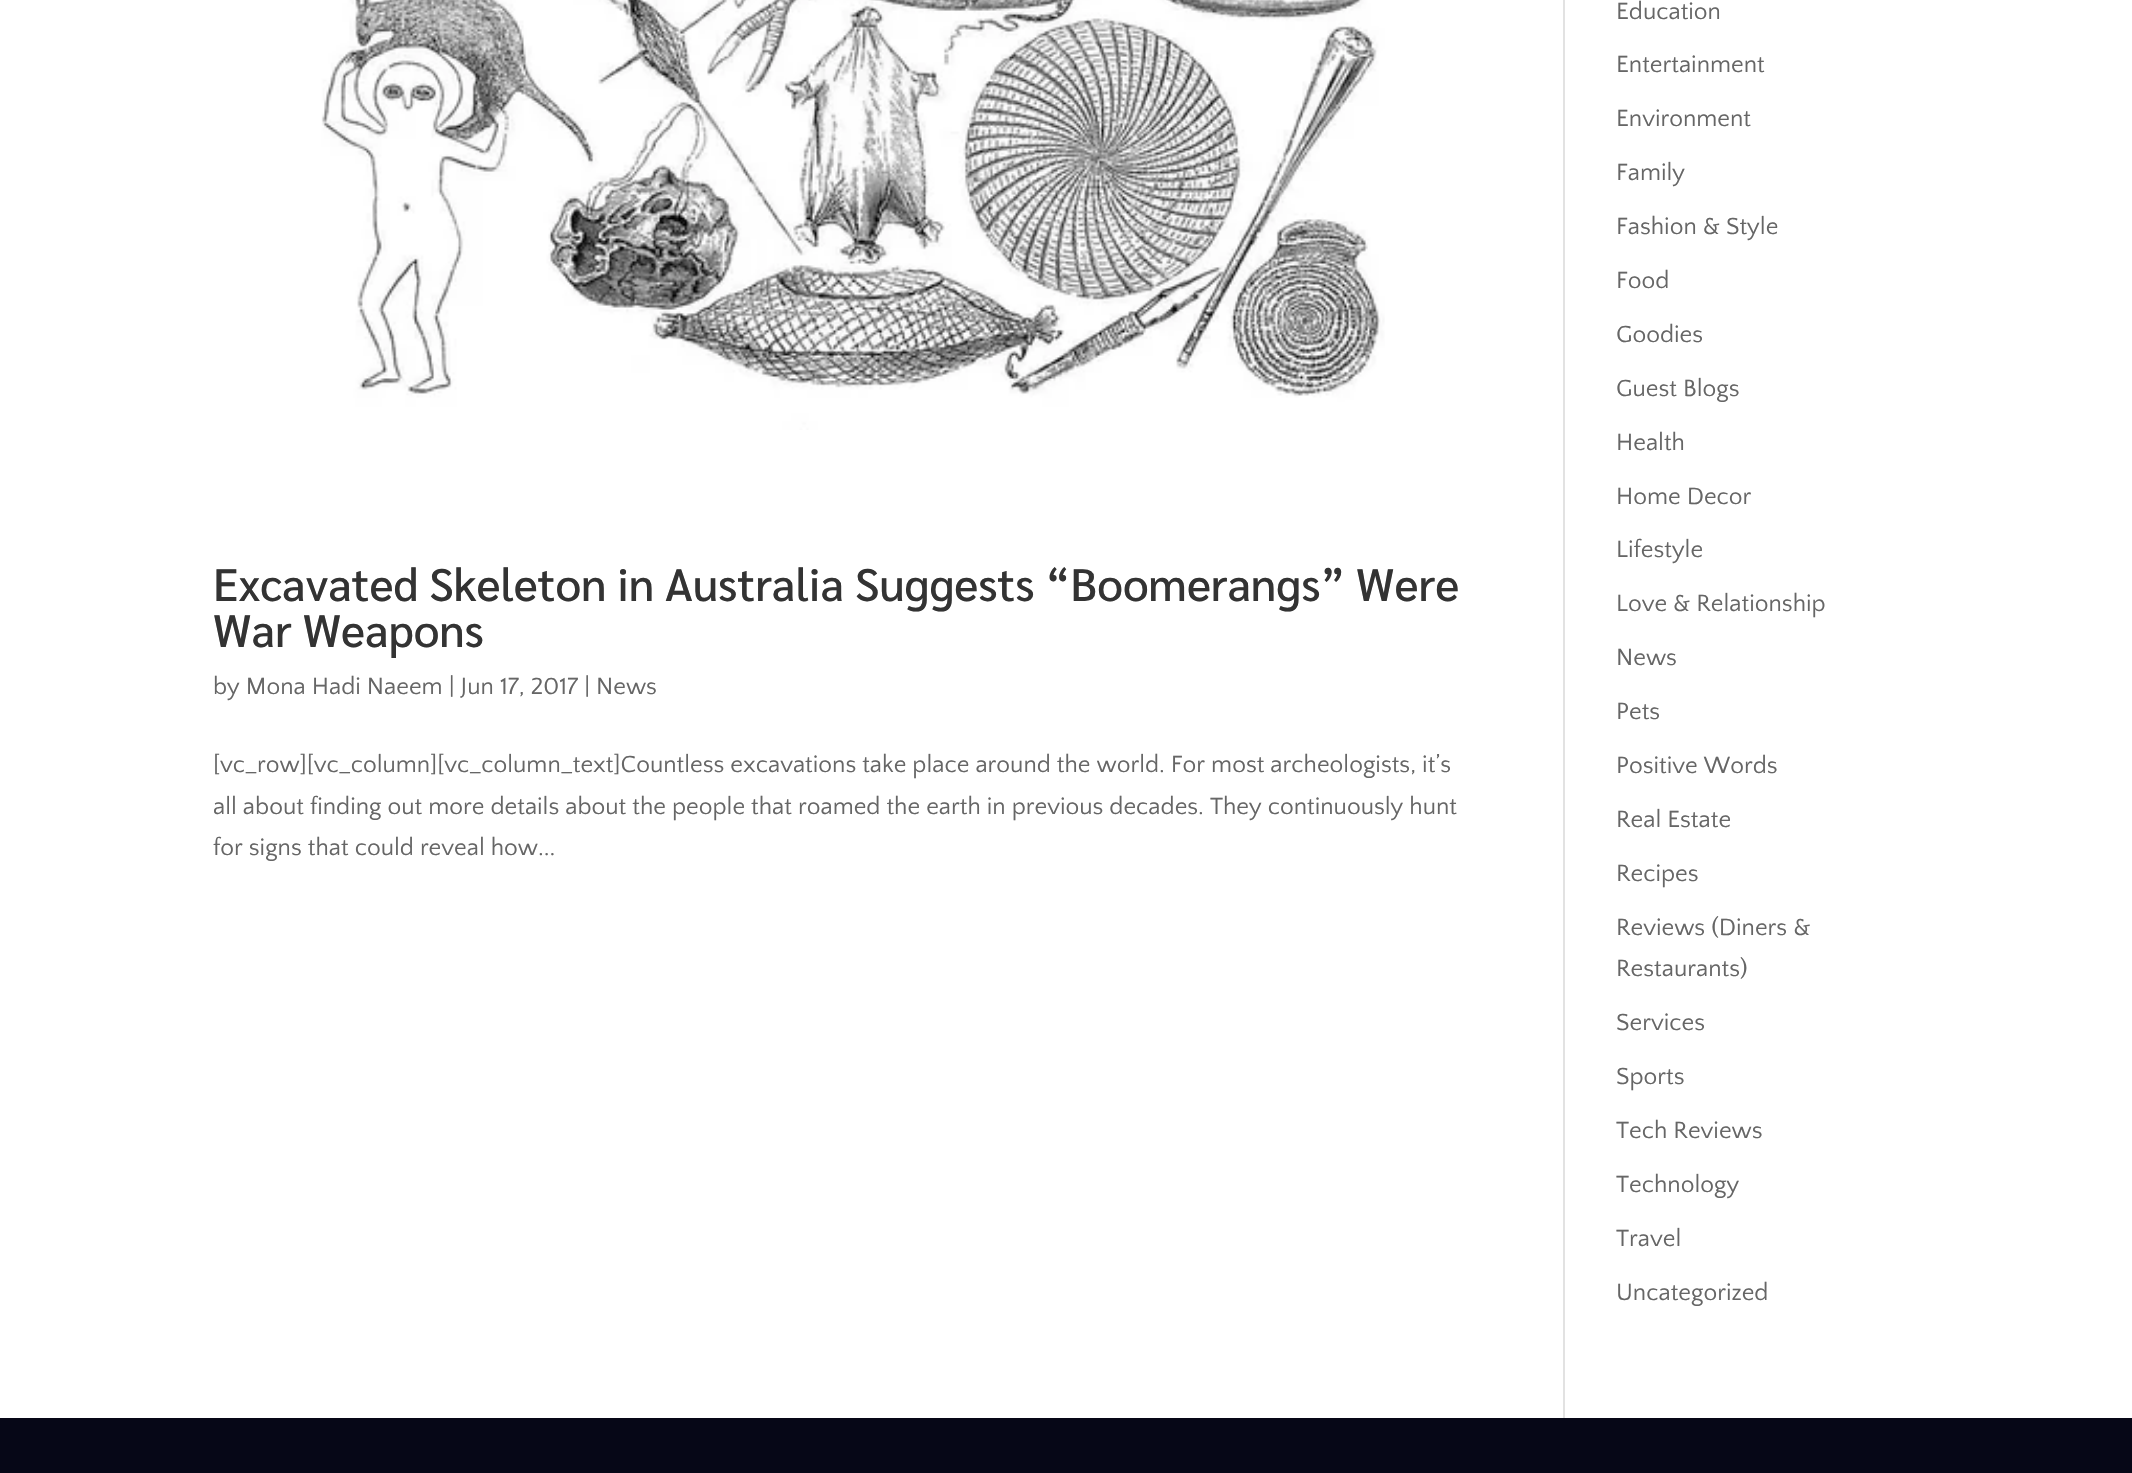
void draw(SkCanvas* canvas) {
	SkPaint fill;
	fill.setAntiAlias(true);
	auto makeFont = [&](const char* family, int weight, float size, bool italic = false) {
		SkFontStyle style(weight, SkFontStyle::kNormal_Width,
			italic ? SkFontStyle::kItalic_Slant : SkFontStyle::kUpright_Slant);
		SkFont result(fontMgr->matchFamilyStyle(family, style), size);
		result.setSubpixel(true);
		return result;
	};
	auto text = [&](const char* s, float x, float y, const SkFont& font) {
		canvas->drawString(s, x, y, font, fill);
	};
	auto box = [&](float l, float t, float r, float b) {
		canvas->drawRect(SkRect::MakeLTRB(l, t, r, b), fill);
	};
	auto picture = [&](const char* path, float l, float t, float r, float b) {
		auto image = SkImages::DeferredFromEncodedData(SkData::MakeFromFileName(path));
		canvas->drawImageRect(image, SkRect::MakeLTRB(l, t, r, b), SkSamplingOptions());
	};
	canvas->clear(0xFFFFFFFF);
	picture("image0.png", 321, 0, 1385, 430);
	fill.setColor(0xFFE2E2E2);
	box(1563, 0, 1565, 1418);
	fill.setColor(0xFF060717);
	box(0, 1418, 2132, 1473);
	auto font1 = makeFont("Sarabun", 500, 45.5f);
	fill.setColor(0xFF333333);
	text("Excavated Skeleton in Australia Suggests “Boomerangs” Were", 213, 601, font1);
	text("War Weapons", 213, 647, font1);
	auto font2 = makeFont("Quattrocento Sans", 400, 24.5f);
	fill.setColor(0xFF666666);
	text("by Mona Hadi Naeem | Jun 17, 2017 | News", 213, 694, font2);
	text("[vc_row][vc_column][vc_column_text]Countless excavations take place around the world. For most archeologists, it’s", 213, 772, font2);
	text("all about finding out more details about the people that roamed the earth in previous decades. They continuously hunt", 213, 814, font2);
	text("for signs that could reveal how...", 213, 855, font2);
	text("Education", 1616, 19, font2);
	text("Entertainment", 1616, 72, font2);
	text("Environment", 1616, 126, font2);
	text("Family", 1616, 180, font2);
	text("Fashion & Style", 1616, 234, font2);
	text("Food", 1616, 288, font2);
	text("Goodies", 1616, 342, font2);
	text("Guest Blogs", 1616, 396, font2);
	text("Health", 1616, 450, font2);
	text("Home Decor", 1616, 504, font2);
	text("Lifestyle", 1616, 557, font2);
	text("Love & Relationship", 1616, 611, font2);
	text("News", 1616, 665, font2);
	text("Pets", 1616, 719, font2);
	text("Positive Words", 1616, 773, font2);
	text("Real Estate", 1616, 827, font2);
	text("Recipes", 1616, 881, font2);
	text("Reviews (Diners &", 1616, 935, font2);
	text("Restaurants)", 1616, 976, font2);
	text("Services", 1616, 1030, font2);
	text("Sports", 1616, 1084, font2);
	text("Tech Reviews", 1616, 1138, font2);
	text("Technology", 1616, 1192, font2);
	text("Travel", 1616, 1246, font2);
	text("Uncategorized", 1616, 1300, font2);
}
